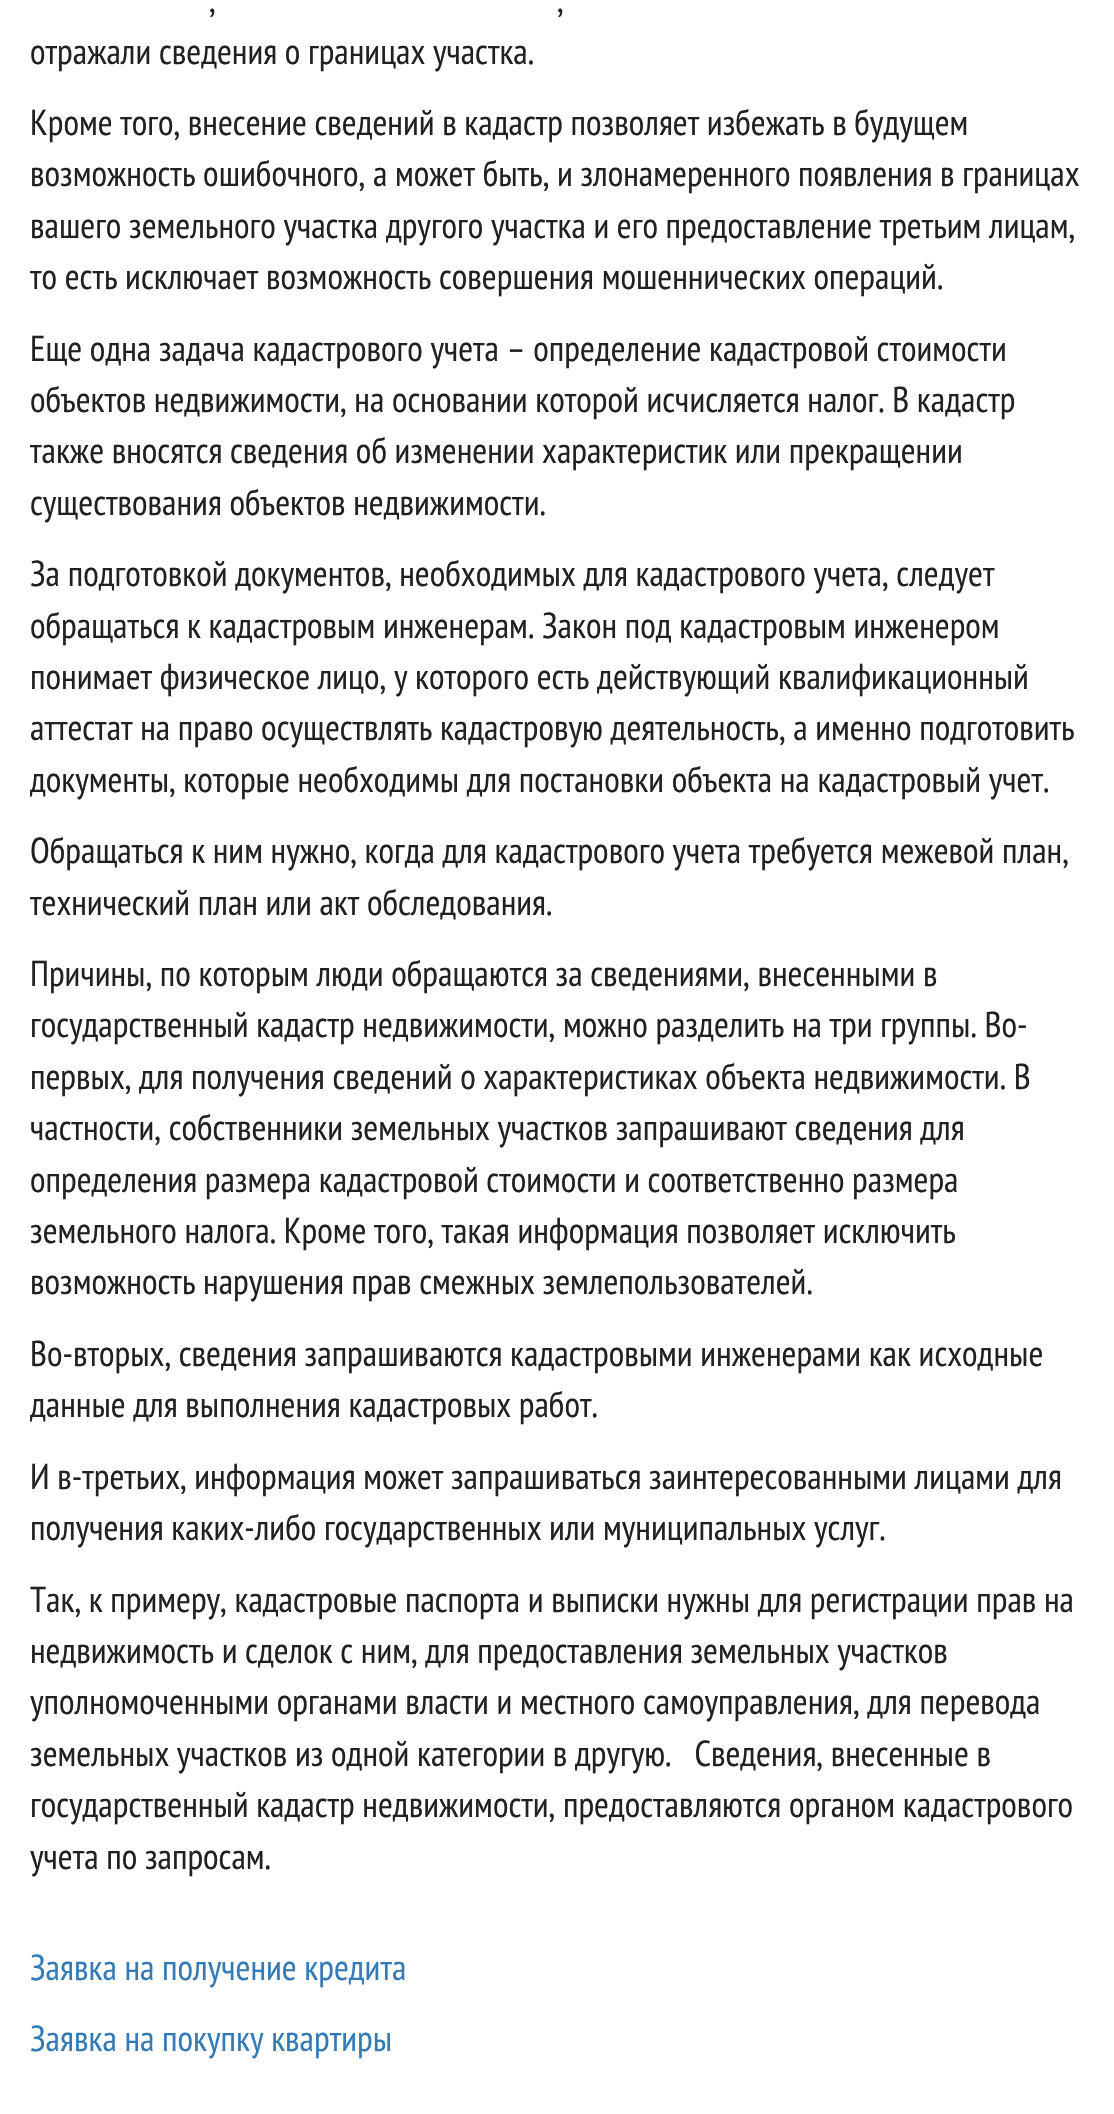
void draw(SkCanvas* canvas) {
	SkPaint fill;
	fill.setAntiAlias(true);
	auto makeFont = [&](const char* family, int weight, float size, bool italic = false) {
		SkFontStyle style(weight, SkFontStyle::kNormal_Width,
			italic ? SkFontStyle::kItalic_Slant : SkFontStyle::kUpright_Slant);
		SkFont result(fontMgr->matchFamilyStyle(family, style), size);
		result.setSubpixel(true);
		return result;
	};
	auto text = [&](const char* s, float x, float y, const SkFont& font) {
		canvas->drawString(s, x, y, font, fill);
	};
	canvas->clear(0xFFFFFFFF);
	auto font1 = makeFont("PT Sans Narrow", 400, 36);
	fill.setColor(0xFF212121);
	text(",", 209, 12, font1);
	text(",", 557, 12, font1);
	text("отражали сведения о границах участка.", 30, 64, font1);
	text("Кроме того, внесение сведений в кадастр позволяет избежать в будущем", 30, 135, font1);
	text("возможность ошибочного, а может быть, и злонамеренного появления в границах", 30, 186, font1);
	text("вашего земельного участка другого участка и его предоставление третьим лицам,", 30, 238, font1);
	text("то есть исключает возможность совершения мошеннических операций.", 30, 289, font1);
	text("Еще одна задача кадастрового учета – определение кадастровой стоимости", 30, 361, font1);
	text("объектов недвижимости, на основании которой исчисляется налог. В кадастр", 30, 412, font1);
	text("также вносятся сведения об изменении характеристик или прекращении", 30, 463, font1);
	text("существования объектов недвижимости.", 30, 515, font1);
	text("За подготовкой документов, необходимых для кадастрового учета, следует", 30, 586, font1);
	text("обращаться к кадастровым инженерам. Закон под кадастровым инженером", 30, 638, font1);
	text("понимает физическое лицо, у которого есть действующий квалификационный", 30, 689, font1);
	text("аттестат на право осуществлять кадастровую деятельность, а именно подготовить", 30, 740, font1);
	text("документы, которые необходимы для постановки объекта на кадастровый учет.", 30, 792, font1);
	text("Обращаться к ним нужно, когда для кадастрового учета требуется межевой план,", 30, 863, font1);
	text("технический план или акт обследования.", 30, 915, font1);
	text("Причины, по которым люди обращаются за сведениями, внесенными в", 30, 986, font1);
	text("государственный кадастр недвижимости, можно разделить на три группы. Во-", 30, 1037, font1);
	text("первых, для получения сведений о характеристиках объекта недвижимости. В", 30, 1089, font1);
	text("частности, собственники земельных участков запрашивают сведения для", 30, 1140, font1);
	text("определения размера кадастровой стоимости и соответственно размера", 30, 1192, font1);
	text("земельного налога. Кроме того, такая информация позволяет исключить", 30, 1243, font1);
	text("возможность нарушения прав смежных землепользователей.", 30, 1294, font1);
	text("Во-вторых, сведения запрашиваются кадастровыми инженерами как исходные", 30, 1366, font1);
	text("данные для выполнения кадастровых работ.", 30, 1417, font1);
	text("И в-третьих, информация может запрашиваться заинтересованными лицами для", 30, 1489, font1);
	text("получения каких-либо государственных или муниципальных услуг.", 30, 1540, font1);
	text("Так, к примеру, кадастровые паспорта и выписки нужны для регистрации прав на", 30, 1612, font1);
	text("недвижимость и сделок с ним, для предоставления земельных участков", 30, 1663, font1);
	text("уполномоченными органами власти и местного самоуправления, для перевода", 30, 1714, font1);
	text("земельных участков из одной категории в другую.   Сведения, внесенные в", 30, 1766, font1);
	text("государственный кадастр недвижимости, предоставляются органом кадастрового", 30, 1817, font1);
	text("учета по запросам.", 30, 1869, font1);
	fill.setColor(0xFF337AB7);
	text("Заявка на получение кредита", 30, 1980, font1);
	text("Заявка на покупку квартиры", 30, 2051, font1);
}
